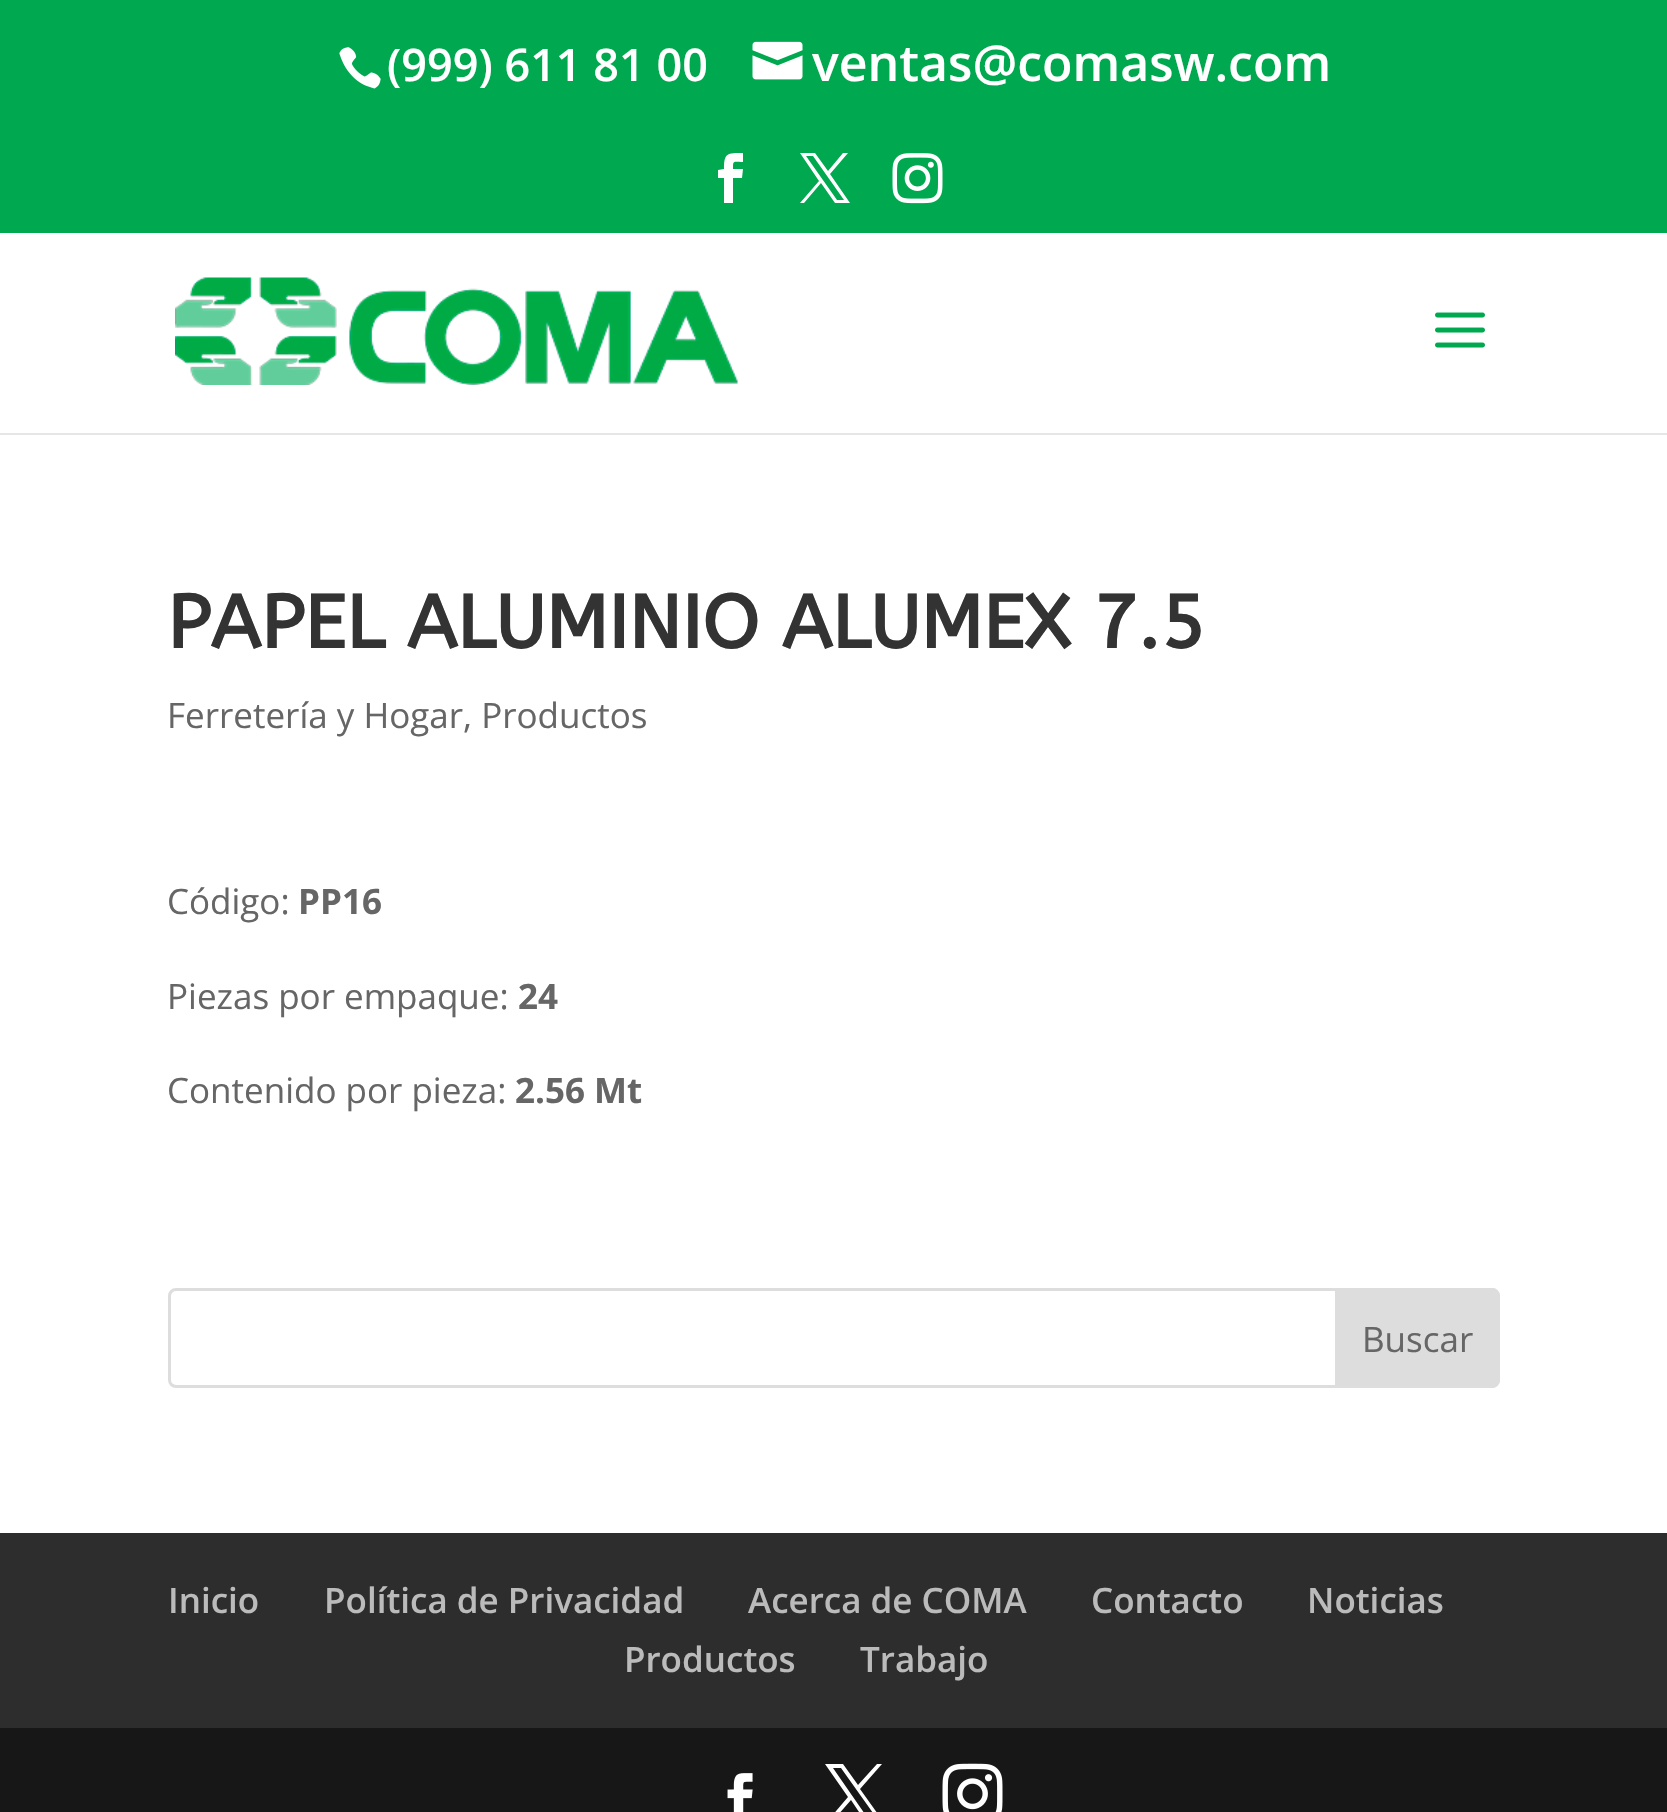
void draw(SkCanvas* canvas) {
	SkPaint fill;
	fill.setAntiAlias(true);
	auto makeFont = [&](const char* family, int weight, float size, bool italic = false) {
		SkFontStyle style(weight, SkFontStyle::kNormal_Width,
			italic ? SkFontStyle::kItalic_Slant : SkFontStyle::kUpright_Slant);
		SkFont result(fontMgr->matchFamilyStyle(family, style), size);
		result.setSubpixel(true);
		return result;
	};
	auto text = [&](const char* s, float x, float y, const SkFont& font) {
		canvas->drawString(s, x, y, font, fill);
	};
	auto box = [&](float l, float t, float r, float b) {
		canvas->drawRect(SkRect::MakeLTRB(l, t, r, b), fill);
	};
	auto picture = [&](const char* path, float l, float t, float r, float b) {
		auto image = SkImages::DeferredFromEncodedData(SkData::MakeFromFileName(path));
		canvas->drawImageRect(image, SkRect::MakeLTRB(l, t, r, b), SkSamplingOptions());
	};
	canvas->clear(0xFFFFFFFF);
	fill.setColor(0xFF00A94F);
	box(0, 0, 1667, 233);
	picture("image0.png", 339, 47, 381, 89);
	picture("image1.png", 752, 41, 803, 80);
	fill.setColor(0xFFFFFFFF);
	canvas->drawPath(SkPathBuilder().moveTo(724, 203).lineTo(733, 203).lineTo(733, 178).lineTo(742, 178).lineTo(743, 169).lineTo(733, 169).cubicTo(733, 160, 733, 162, 743, 162).lineTo(743, 153).cubicTo(727, 153, 724, 153, 724, 169).lineTo(718, 170).lineTo(718, 178).lineTo(724, 178).close().detach(), fill);
	canvas->drawPath(SkPathBuilder().moveTo(800, 153).lineTo(819, 181).lineTo(800, 203).lineTo(804, 203).lineTo(821, 183).lineTo(835, 203).lineTo(850, 203).lineTo(830, 174).lineTo(848, 153).lineTo(843, 153).lineTo(828, 171).lineTo(815, 153).close().moveTo(806, 156).lineTo(813, 156).lineTo(844, 200).lineTo(837, 200).close().detach(), fill);
	picture("image2.png", 892, 153, 943, 204);
	fill.setColor(0xFFE6E6E6);
	canvas->drawPath(SkPathBuilder().moveTo(0, 432).lineTo(0, 435).lineTo(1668, 435).lineTo(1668, 235).lineTo(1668, 432).close().detach(), fill);
	fill.setColor(0xFFFFFFFF);
	box(0, 432, 1667, 433);
	picture("image3.png", 175, 277, 738, 385);
	picture("image4.png", 1435, 312, 1485, 348);
	fill.setStyle(SkPaint::kStroke_Style);
	fill.setStrokeWidth(3);
	fill.setColor(0xFFDDDDDD);
	canvas->drawRoundRect(SkRect::MakeLTRB(169.5f, 1289.5f, 1498.5f, 1386.5f), 6.5f, 6.5f, fill);
	fill.setStyle(SkPaint::kFill_Style);
	canvas->drawPath(SkPathBuilder().moveTo(1336.5f, 1289.5f).lineTo(1492, 1289.5f).cubicTo(1495.5f, 1289.5f, 1498.5f, 1292.5f, 1498.5f, 1296).lineTo(1498.5f, 1380).cubicTo(1498.5f, 1383.5f, 1495.5f, 1386.5f, 1492, 1386.5f).lineTo(1336.5f, 1386.5f).close().detach(), fill);
	fill.setStyle(SkPaint::kStroke_Style);
	canvas->drawPath(SkPathBuilder().moveTo(1336.5f, 1289.5f).lineTo(1492, 1289.5f).cubicTo(1495.5f, 1289.5f, 1498.5f, 1292.5f, 1498.5f, 1296).lineTo(1498.5f, 1380).cubicTo(1498.5f, 1383.5f, 1495.5f, 1386.5f, 1492, 1386.5f).lineTo(1336.5f, 1386.5f).close().detach(), fill);
	fill.setStyle(SkPaint::kFill_Style);
	fill.setColor(0xFF2D2D2D);
	box(0, 1533, 1667, 1728);
	fill.setColor(0xFF171717);
	box(0, 1728, 1667, 1812);
	picture("image5.png", 727, 1773, 753, 1812);
	fill.setColor(0xFFFFFFFF);
	canvas->drawPath(SkPathBuilder().moveTo(825, 1764).lineTo(848, 1797).lineTo(825, 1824).lineTo(830, 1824).lineTo(851, 1800).lineTo(867, 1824).lineTo(885, 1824).lineTo(860, 1789).lineTo(882, 1764).lineTo(877, 1764).lineTo(858, 1785).lineTo(843, 1764).close().moveTo(833, 1768).lineTo(841, 1768).lineTo(878, 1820).lineTo(869, 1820).close().detach(), fill);
	picture("image6.png", 942, 1763, 1003, 1812);
	auto font1 = makeFont("Open Sans", 600, 45);
	text("(999) 611 81 00", 387, 81, font1);
	auto font2 = makeFont("Open Sans", 600, 50);
	text("ventas@comasw.com", 812, 81, font2);
	auto font3 = makeFont("ABeeZee", 700, 75);
	fill.setColor(0xFF333333);
	text("PAPEL ALUMINIO ALUMEX 7.5", 167, 648, font3);
	auto font4 = makeFont("Open Sans", 400, 35);
	fill.setColor(0xFF666666);
	text("Ferretería y Hogar, Productos", 167, 728, font4);
	text("Código:", 167, 914, font4);
	auto font5 = makeFont("Open Sans", 700, 35);
	text("PP16", 298, 914, font5);
	text("Piezas por empaque:", 167, 1009, font4);
	text("24", 518, 1009, font5);
	text("Contenido por pieza:", 167, 1103, font4);
	text("2.56 Mt", 515, 1103, font5);
	text("Buscar", 1362, 1352, font4);
	auto font6 = makeFont("Open Sans", 600, 35);
	fill.setColor(0xFFBBBBBB);
	text("Inicio", 168, 1613, font6);
	text("Política de Privacidad", 324, 1613, font6);
	text("Acerca de COMA", 748, 1613, font6);
	text("Contacto", 1091, 1613, font6);
	text("Noticias", 1307, 1613, font6);
	text("Productos", 624, 1672, font6);
	text("Trabajo", 860, 1672, font6);
}
